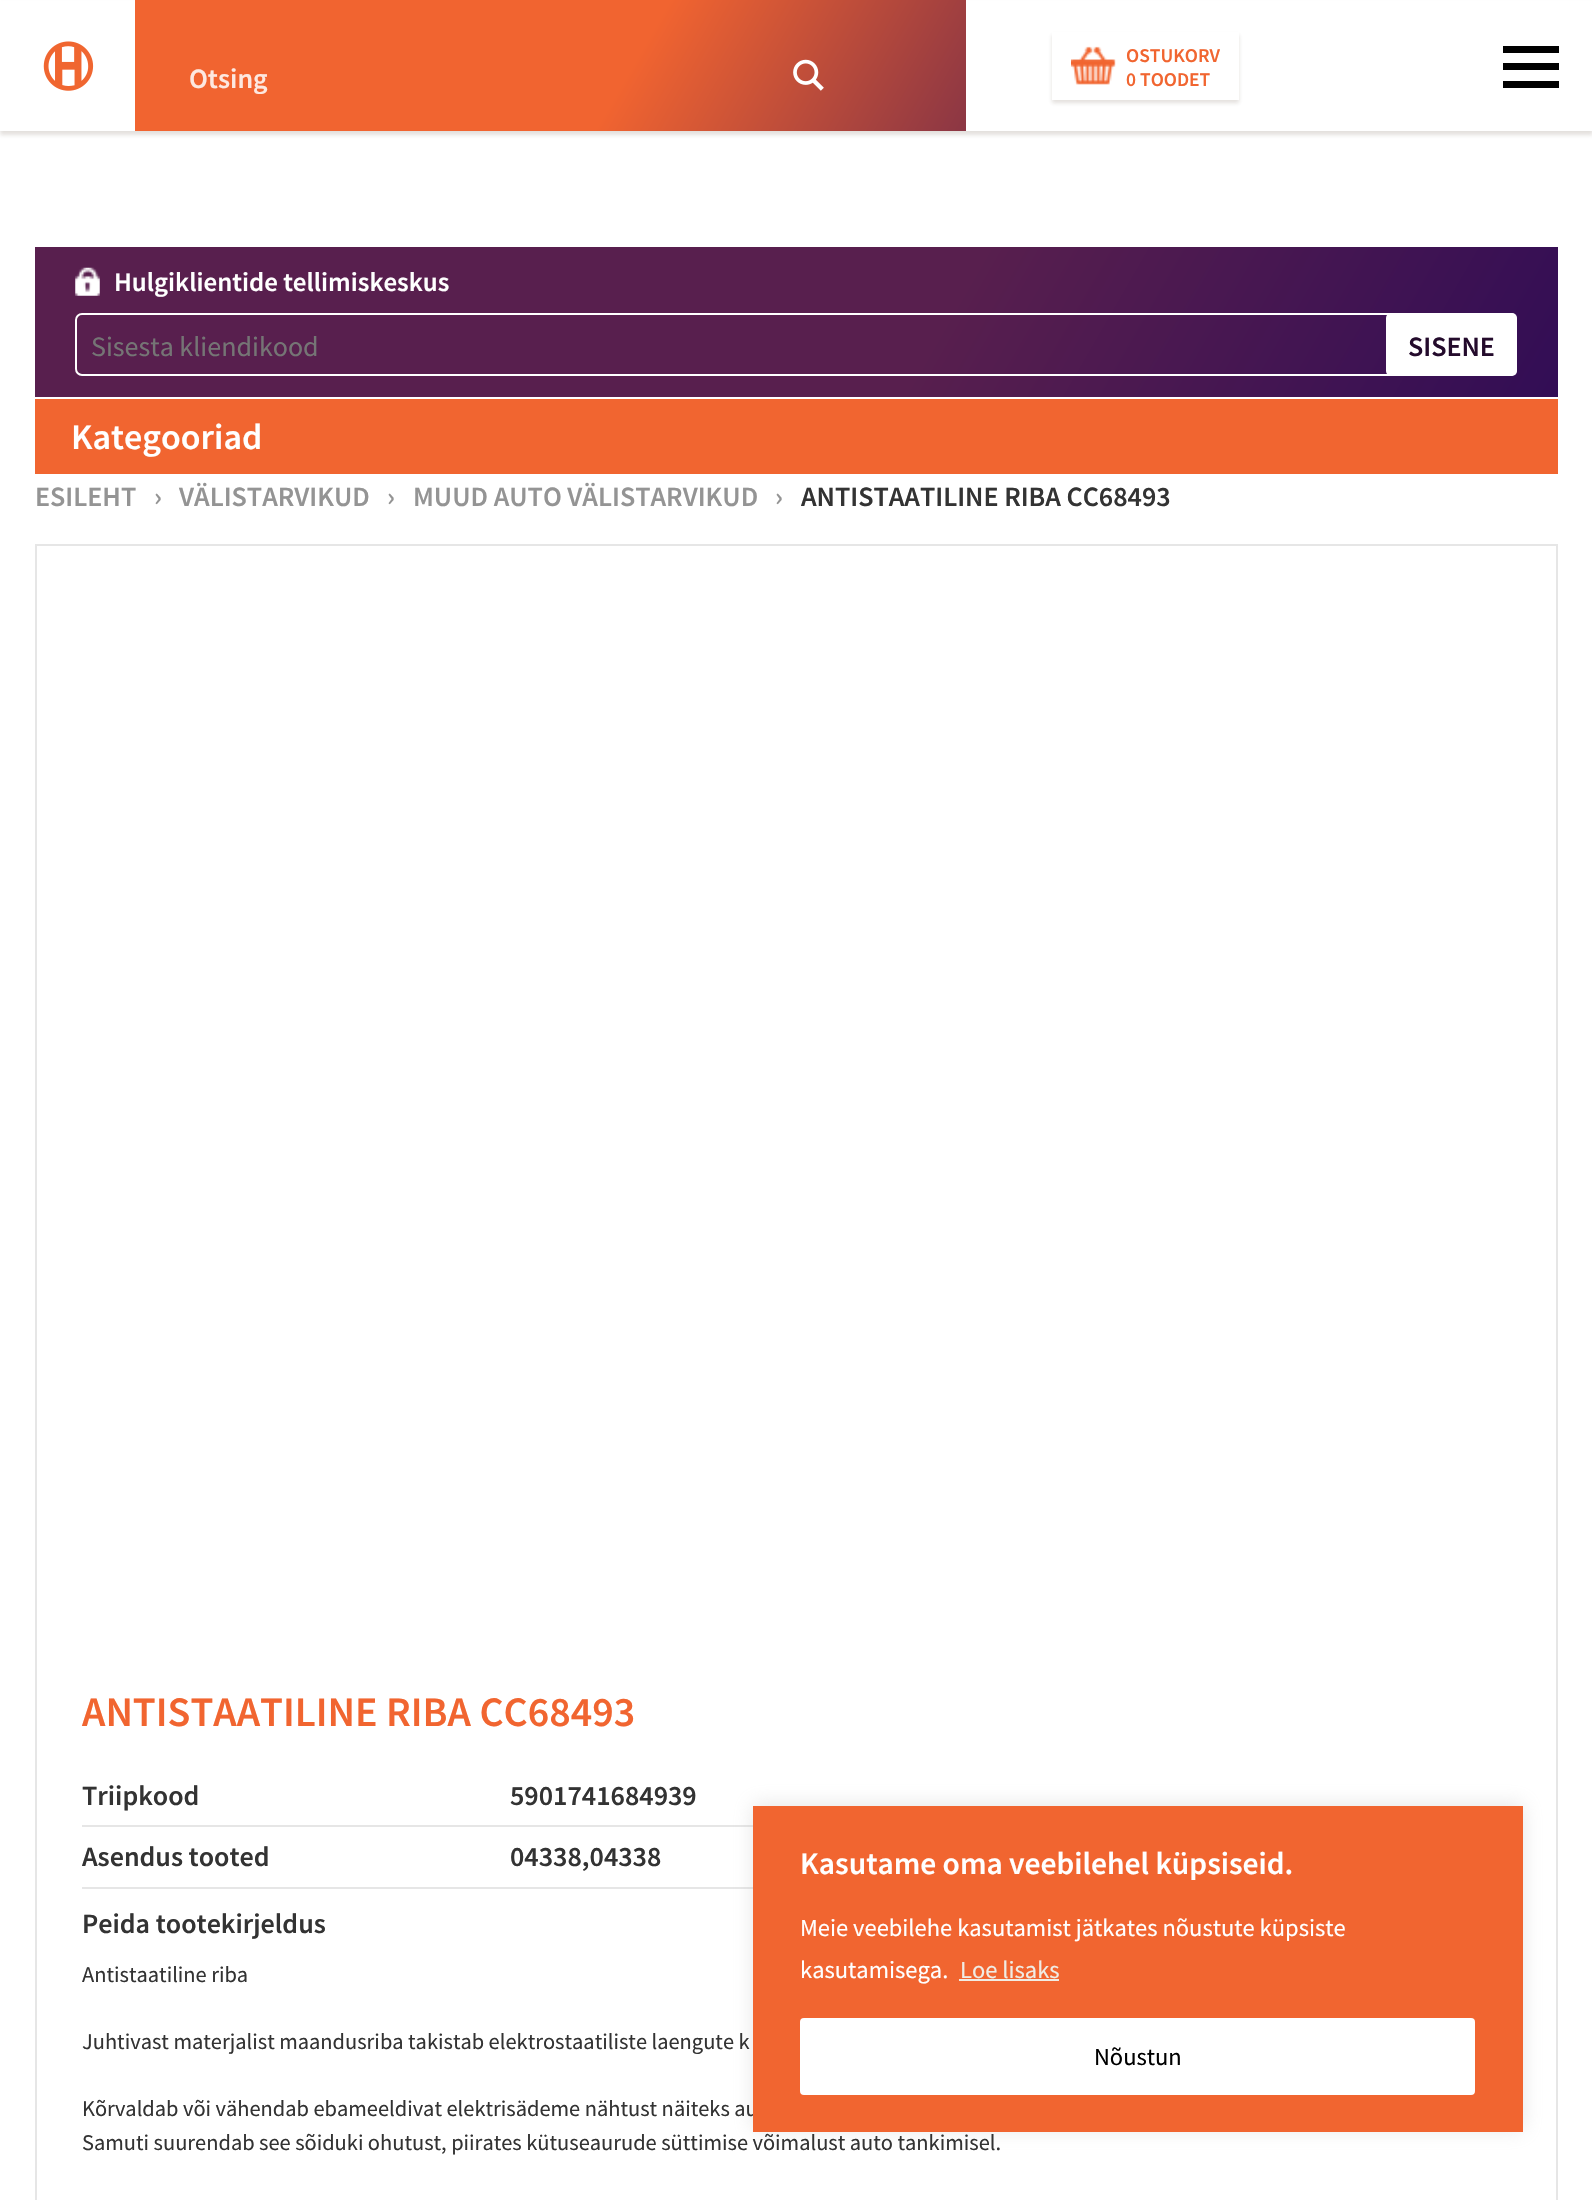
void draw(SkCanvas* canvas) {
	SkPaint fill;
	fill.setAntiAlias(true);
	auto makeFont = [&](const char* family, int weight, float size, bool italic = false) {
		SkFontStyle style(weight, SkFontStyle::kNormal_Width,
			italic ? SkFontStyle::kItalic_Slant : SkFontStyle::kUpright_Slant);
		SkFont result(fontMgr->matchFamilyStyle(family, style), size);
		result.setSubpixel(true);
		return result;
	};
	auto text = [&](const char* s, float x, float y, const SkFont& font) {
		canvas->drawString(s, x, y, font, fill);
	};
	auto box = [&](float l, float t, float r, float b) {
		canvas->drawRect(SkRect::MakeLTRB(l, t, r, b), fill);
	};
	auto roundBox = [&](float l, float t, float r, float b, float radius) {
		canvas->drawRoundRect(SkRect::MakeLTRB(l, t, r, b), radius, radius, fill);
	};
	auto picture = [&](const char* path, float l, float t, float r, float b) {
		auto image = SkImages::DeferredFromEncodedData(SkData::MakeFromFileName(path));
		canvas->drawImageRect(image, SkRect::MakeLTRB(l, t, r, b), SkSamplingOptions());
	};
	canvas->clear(0xFFFFFFFF);
	fill.setColor(0x2437220D);
	fill.setMaskFilter(SkMaskFilter::MakeBlur(kNormal_SkBlurStyle, 2));
	canvas->drawRect(SkRect::MakeLTRB(0, 4, 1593, 135), fill);
	fill.setMaskFilter(nullptr);
	fill.setColor(0xFFFFFFFF);
	box(0, 1, 1592, 131);
	picture("image0.png", 43, 41, 94, 91);
	{
		const SkColor colors[] = {0xFFF16430, 0xFFF16430, 0xFF8B3644};
		const float stops[] = {0, 0.59f, 1};
		const SkPoint ends[] = {{210, -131}, {891, 262}};
		fill.setShader(SkGradientShader::MakeLinear(ends, colors, stops, 3, SkTileMode::kClamp));
		fill.setAlpha(255);
	}
	box(135, 0, 966, 131);
	picture("image1.png", 793, 59, 824, 91);
	fill.setShader(nullptr);
	fill.setColor(0x2437220D);
	fill.setMaskFilter(SkMaskFilter::MakeBlur(kNormal_SkBlurStyle, 2));
	canvas->drawRect(SkRect::MakeLTRB(1052, 35, 1239, 103), fill);
	fill.setMaskFilter(nullptr);
	fill.setColor(0xFFFFFFFF);
	box(1052, 32, 1239, 100);
	picture("image2.png", 1071, 46, 1116, 85);
	fill.setColor(0xFF000000);
	box(1503, 63, 1559, 70);
	box(1503, 46, 1559, 53);
	box(1503, 81, 1559, 88);
	{
		const SkColor colors[] = {0xFF581F4E, 0xFF581F4E, 0xFF320D55};
		const float stops[] = {0, 0.59f, 1};
		const SkPoint ends[] = {{193, -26}, {1400, 670}};
		fill.setShader(SkGradientShader::MakeLinear(ends, colors, stops, 3, SkTileMode::kClamp));
		fill.setAlpha(255);
	}
	box(35, 247, 1558, 397);
	picture("image3.png", 75, 267, 100, 296);
	fill.setStyle(SkPaint::kStroke_Style);
	fill.setStrokeWidth(2);
	fill.setShader(nullptr);
	fill.setColor(0xFFFFFFFF);
	canvas->drawRoundRect(SkRect::MakeLTRB(76, 314, 1516, 375), 6, 6, fill);
	fill.setStyle(SkPaint::kFill_Style);
	roundBox(1386, 313, 1517, 376, 5);
	fill.setColor(0xFFF16530);
	box(35, 399, 1558, 474);
	fill.setStyle(SkPaint::kStroke_Style);
	fill.setColor(0xFFE6E6E6);
	canvas->drawRect(SkRect::MakeLTRB(36, 545, 1557, 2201), fill);
	fill.setStyle(SkPaint::kFill_Style);
	box(82, 1825, 753, 1827);
	box(82, 1887, 753, 1889);
	fill.setColor(0x4DACABAB);
	fill.setMaskFilter(SkMaskFilter::MakeBlur(kNormal_SkBlurStyle, 9));
	canvas->drawRect(SkRect::MakeLTRB(753, 1804, 1523, 2130), fill);
	fill.setMaskFilter(nullptr);
	auto font1 = makeFont("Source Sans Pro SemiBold", 600, 28);
	fill.setColor(0xFFFDE8E0);
	text("Otsing", 189, 88, font1);
	auto font2 = makeFont("Source Sans Pro SemiBold", 600, 19.5f);
	fill.setColor(0xFFF16530);
	text("OSTUKORV", 1126, 62, font2);
	text("0", 1126, 86, font2);
	text("TOODET", 1140, 86, font2);
	auto font3 = makeFont("Source Sans Pro SemiBold", 600, 26.9f);
	fill.setColor(0xFFFFFFFF);
	text("Hulgiklientide tellimiskeskus", 114, 291, font3);
	auto font4 = makeFont("Source Sans Pro", 400, 28);
	fill.setColor(0xFF757575);
	text("Sisesta kliendikood", 91, 356, font4);
	fill.setColor(0xFF240B2C);
	text("SISENE", 1408, 356, font1);
	auto font5 = makeFont("Source Sans Pro SemiBold", 600, 36);
	fill.setColor(0xFFFFFFFF);
	text("Kategooriad", 71, 449, font5);
	fill.setColor(0xFF949494);
	text("ESILEHT", 35, 506, font1);
	text("›", 154, 506, font1);
	text("VÄLISTARVIKUD", 179, 506, font1);
	text("›", 387, 506, font1);
	text("MUUD AUTO VÄLISTARVIKUD", 413, 506, font1);
	text("›", 775, 506, font1);
	fill.setColor(0xFF333333);
	text("ANTISTAATILINE RIBA CC68493", 801, 506, font1);
	auto font6 = makeFont("Source Sans Pro SemiBold", 600, 41.9f);
	fill.setColor(0xFFF16530);
	text("ANTISTAATILINE RIBA CC68493", 82, 1726, font6);
	fill.setColor(0xFF333333);
	text("Triipkood", 82, 1805, font1);
	text("5901741684939", 510, 1805, font1);
	text("Asendus tooted", 82, 1866, font1);
	text("04338,04338", 510, 1866, font1);
	text("Peida tootekirjeldus", 82, 1933, font1);
	auto font7 = makeFont("Source Sans Pro", 400, 22.4f);
	text("Antistaatiline riba", 82, 1982, font7);
	text("Juhtivast materjalist maandusriba takistab elektrostaatiliste laengute k", 82, 2049, font7);
	text("Kõrvaldab või vähendab ebameeldivat elektrisädeme nähtust näiteks au", 82, 2116, font7);
	text("Samuti suurendab see sõiduki ohutust, piirates kütuseaurude süttimise võimalust auto tankimisel.", 82, 2150, font7);
	fill.setColor(0xFFF16530);
	box(753, 1806, 1523, 2132);
	auto font8 = makeFont("Source Sans Pro SemiBold", 600, 31.5f);
	fill.setColor(0xFFFFFFFF);
	text("Kasutame oma veebilehel küpsiseid.", 800, 1874, font8);
	auto font9 = makeFont("Source Sans Pro", 400, 24.5f);
	text("Meie veebilehe kasutamist jätkates nõustute küpsiste", 800, 1936, font9);
	text("kasutamisega.", 800, 1978, font9);
	fill.setColor(0xFFF0ECE4);
	text("Loe lisaks", 960, 1978, font9);
	box(959, 1979, 1059, 1981);
	fill.setColor(0xFFFFFFFF);
	canvas->drawRoundRect(SkRect::MakeLTRB(802, 2020, 1473, 2093), 2, 2, fill);
	fill.setStyle(SkPaint::kStroke_Style);
	fill.setStrokeWidth(4);
	canvas->drawRoundRect(SkRect::MakeLTRB(802, 2020, 1473, 2093), 2, 2, fill);
	fill.setStyle(SkPaint::kFill_Style);
	fill.setColor(0xFF000000);
	text("Nõustun", 1094, 2065, font9);
}
